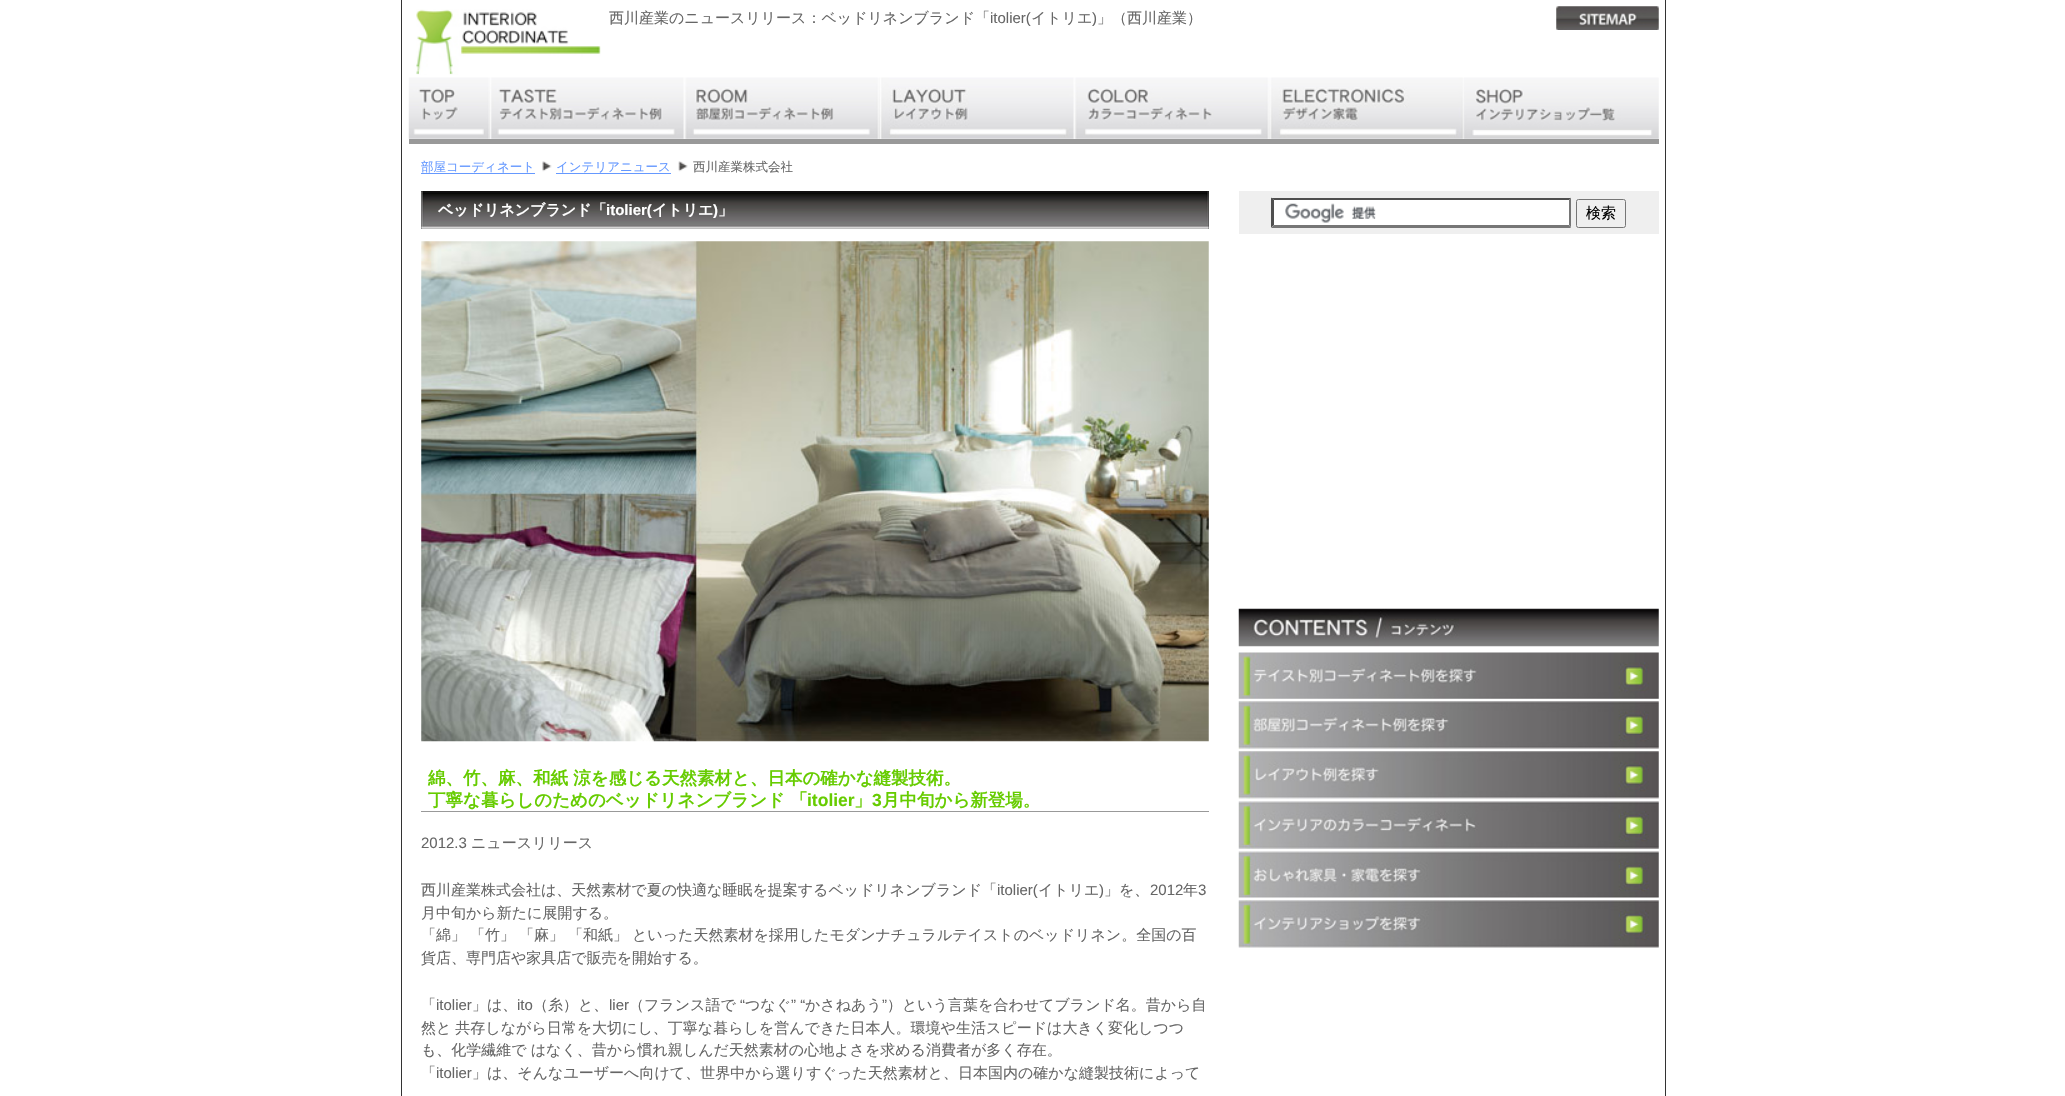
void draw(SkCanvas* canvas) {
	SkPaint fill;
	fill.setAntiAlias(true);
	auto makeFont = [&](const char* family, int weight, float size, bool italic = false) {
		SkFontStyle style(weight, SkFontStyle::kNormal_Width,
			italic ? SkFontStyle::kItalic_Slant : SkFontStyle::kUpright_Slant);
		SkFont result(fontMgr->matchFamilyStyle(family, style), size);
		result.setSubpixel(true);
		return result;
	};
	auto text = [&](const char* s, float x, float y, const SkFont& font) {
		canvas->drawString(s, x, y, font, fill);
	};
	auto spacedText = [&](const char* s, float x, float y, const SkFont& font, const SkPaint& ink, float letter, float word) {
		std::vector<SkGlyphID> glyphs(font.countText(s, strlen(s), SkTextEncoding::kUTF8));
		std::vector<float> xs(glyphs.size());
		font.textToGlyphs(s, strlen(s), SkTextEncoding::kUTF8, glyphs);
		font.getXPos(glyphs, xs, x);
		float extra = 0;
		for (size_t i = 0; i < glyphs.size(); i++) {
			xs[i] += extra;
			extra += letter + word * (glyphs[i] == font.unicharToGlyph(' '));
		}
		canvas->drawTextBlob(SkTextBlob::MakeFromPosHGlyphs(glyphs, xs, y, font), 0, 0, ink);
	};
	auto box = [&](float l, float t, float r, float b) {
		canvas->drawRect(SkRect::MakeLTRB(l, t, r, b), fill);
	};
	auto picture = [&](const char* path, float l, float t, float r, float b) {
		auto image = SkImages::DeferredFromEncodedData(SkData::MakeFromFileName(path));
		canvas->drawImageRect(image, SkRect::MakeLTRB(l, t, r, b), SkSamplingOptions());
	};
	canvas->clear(0xFFFFFFFF);
	fill.setColor(0xFF333333);
	box(1665, 0, 1666, 1096);
	box(401, 0, 402, 1096);
	picture("image0.png", 416, 9, 601, 75);
	picture("image1.png", 1556, 6, 1659, 30);
	fill.setColor(0xFF999999);
	box(409, 139, 1659, 144);
	picture("image2.png", 408, 77, 489, 139);
	picture("image3.png", 489, 77, 684, 139);
	picture("image4.png", 683, 77, 879, 139);
	picture("image5.png", 879, 77, 1074, 139);
	picture("image6.png", 1073, 77, 1269, 139);
	picture("image7.png", 1269, 77, 1464, 139);
	picture("image8.png", 1464, 77, 1659, 139);
	fill.setColor(0xFF6699FF);
	box(421, 173, 535, 174);
	picture("image9.png", 542, 161, 552, 172);
	box(556, 173, 671, 174);
	picture("image10.png", 678, 161, 688, 172);
	fill.setColor(0xFF000000);
	box(421, 191, 1209, 229);
	picture("image11.png", 421, 191, 1209, 229);
	picture("image12.png", 421, 241, 1209, 742);
	fill.setColor(0xFF999999);
	box(421, 811, 1209, 812);
	fill.setColor(0xFFEFEFEF);
	box(1239, 191, 1659, 234);
	fill.setColor(0xFFFFFFFF);
	box(1271, 198, 1571, 228);
	picture("image13.png", 1285, 203, 1376, 223);
	fill.setColor(0xFF4F4F4F);
	canvas->drawPath(SkPathBuilder().moveTo(1271, 198).lineTo(1571, 198).lineTo(1569, 200).lineTo(1274, 200).close().detach(), fill);
	fill.setColor(0xFF767676);
	canvas->drawPath(SkPathBuilder().moveTo(1571, 197.5f).lineTo(1571, 227.5f).lineTo(1569, 225).lineTo(1569, 200).close().detach(), fill);
	canvas->drawPath(SkPathBuilder().moveTo(1571, 228).lineTo(1271, 228).lineTo(1274, 225).lineTo(1569, 225).close().detach(), fill);
	fill.setColor(0xFF4F4F4F);
	canvas->drawPath(SkPathBuilder().moveTo(1271, 227.5f).lineTo(1271, 197.5f).lineTo(1274, 200).lineTo(1274, 225).close().detach(), fill);
	fill.setStyle(SkPaint::kStroke_Style);
	fill.setStrokeWidth(1);
	fill.setColor(0xFF767676);
	canvas->drawRoundRect(SkRect::MakeLTRB(1576.5f, 199.5f, 1625.5f, 227.5f), 2, 2, fill);
	picture("image14.png", 1238, 608, 1659, 647);
	picture("image15.png", 1238, 652, 1659, 699);
	picture("image16.png", 1238, 701, 1659, 749);
	picture("image17.png", 1238, 751, 1659, 799);
	picture("image18.png", 1238, 801, 1659, 849);
	picture("image19.png", 1238, 851, 1659, 898);
	picture("image20.png", 1238, 900, 1659, 948);
	auto font1 = makeFont("WenQuanYi Zen Hei", 500, 15);
	fill.setStyle(SkPaint::kFill_Style);
	fill.setColor(0xFF666666);
	text("西川産業のニュースリリース：ベッドリネンブランド「", 609, 23, font1);
	auto font2 = makeFont("Liberation Sans", 400, 15);
	text("itolier(", 990, 23, font2);
	text("イトリエ", 1031, 23, font1);
	text(")", 1092, 23, font2);
	text("」（西川産業）", 1097, 23, font1);
	auto font3 = makeFont("WenQuanYi Zen Hei", 500, 12.5f);
	fill.setColor(0xFF6699FF);
	text("部屋コーディネート", 421, 171, font3);
	text("インテリアニュース", 556, 171, font3);
	fill.setColor(0xFF666666);
	text("西川産業株式会社", 693, 171, font3);
	auto font4 = makeFont("WenQuanYi Zen Hei", 700, 15);
	fill.setColor(0xFFFFFFFF);
	text("ベッドリネンブランド「", 438, 215, font4);
	auto font5 = makeFont("Liberation Sans", 700, 15);
	text("itolier(", 606, 215, font5);
	text("イトリエ", 652, 215, font4);
	text(")", 713, 215, font5);
	text("」", 718, 215, font4);
	auto font6 = makeFont("WenQuanYi Zen Hei", 700, 17.5f);
	fill.setColor(0xFF66CC00);
	text("綿、竹、麻、和紙 涼を感じる天然素材と、日本の確かな縫製技術。", 428, 784, font6);
	text("丁寧な暮らしのためのベッドリネンブランド 「", 428, 806, font6);
	auto font7 = makeFont("Liberation Sans", 700, 17.5f);
	text("itolier", 807, 806, font7);
	text("」", 854, 806, font6);
	text("3", 872, 806, font7);
	text("月中旬から新登場。", 882, 806, font6);
	fill.setColor(0xFF666666);
	text("2012.3", 421, 848, font2);
	text("ニュースリリース", 471, 848, font1);
	text("西川産業株式会社は、天然素材で夏の快適な睡眠を提案するベッドリネンブランド「", 421, 895, font1);
	text("itolier(", 997, 895, font2);
	text("イトリエ", 1038, 895, font1);
	text(")", 1099, 895, font2);
	text("」を、", 1104, 895, font1);
	text("2012", 1150, 895, font2);
	text("年", 1183, 895, font1);
	text("3", 1198, 895, font2);
	text("月中旬から新たに展開する。", 421, 918, font1);
	spacedText("「綿」 「竹」 「麻」 「和紙」 といった天然素材を採用したモダンナチュラルテイストのベッドリネン。全国の百", 421, 940, font1, fill, 0, -0.5f);
	text("貨店、専門店や家具店で販売を開始する。", 421, 963, font1);
	text("「", 421, 1010, font1);
	text("itolier", 436, 1010, font2);
	text("」は、", 472, 1010, font1);
	text("ito", 517, 1010, font2);
	text("（糸）と、", 533, 1010, font1);
	text("lier", 609, 1010, font2);
	text("（フランス語で", 629, 1010, font1);
	text("“", 740, 1010, font2);
	text("つなぐ", 745, 1010, font1);
	text("” “", 791, 1010, font2);
	text("かさねあう", 805, 1010, font1);
	text("”", 882, 1010, font2);
	text("）という言葉を合わせてブランド名。昔から自", 887, 1010, font1);
	spacedText("然と 共存しながら日常を大切にし、丁寧な暮らしを営んできた日本人。環境や生活スピードは大きく変化しつつ", 421, 1033, font1, fill, 0, -0.5f);
	spacedText("も、化学繊維で はなく、昔から慣れ親しんだ天然素材の心地よさを求める消費者が多く存在。", 421, 1055, font1, fill, 0, -0.5f);
	text("「", 421, 1078, font1);
	text("itolier", 436, 1078, font2);
	text("」は、そんなユーザーへ向けて、世界中から選りすぐった天然素材と、日本国内の確かな縫製技術によって", 472, 1078, font1);
	fill.setColor(0xFF000000);
	text("検索", 1586, 218, font1);
}
